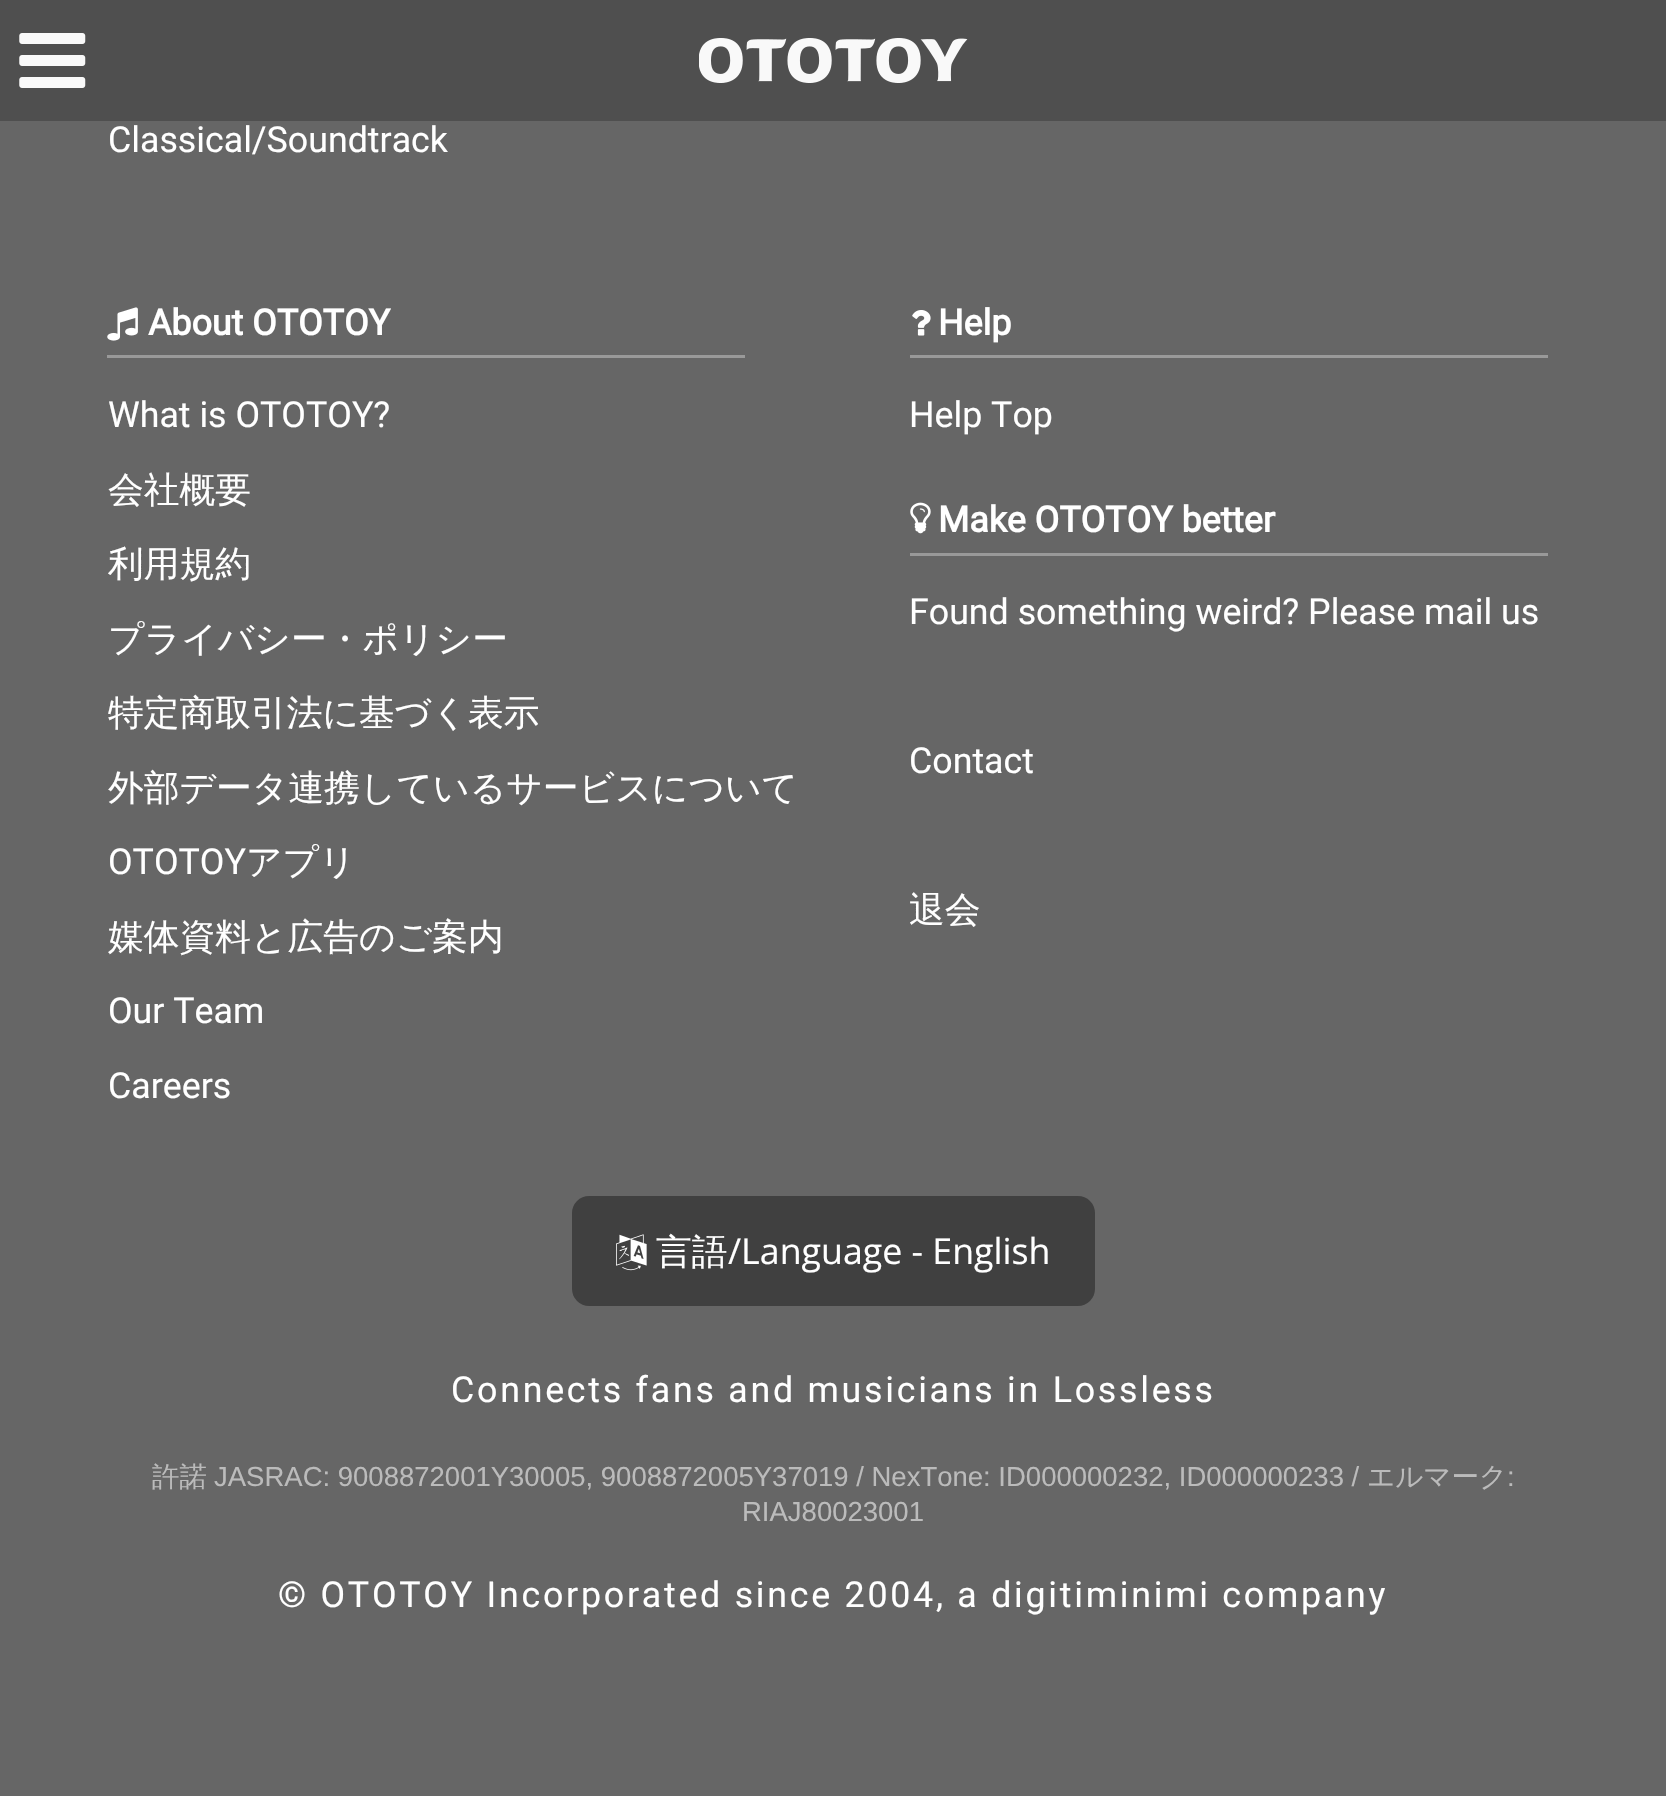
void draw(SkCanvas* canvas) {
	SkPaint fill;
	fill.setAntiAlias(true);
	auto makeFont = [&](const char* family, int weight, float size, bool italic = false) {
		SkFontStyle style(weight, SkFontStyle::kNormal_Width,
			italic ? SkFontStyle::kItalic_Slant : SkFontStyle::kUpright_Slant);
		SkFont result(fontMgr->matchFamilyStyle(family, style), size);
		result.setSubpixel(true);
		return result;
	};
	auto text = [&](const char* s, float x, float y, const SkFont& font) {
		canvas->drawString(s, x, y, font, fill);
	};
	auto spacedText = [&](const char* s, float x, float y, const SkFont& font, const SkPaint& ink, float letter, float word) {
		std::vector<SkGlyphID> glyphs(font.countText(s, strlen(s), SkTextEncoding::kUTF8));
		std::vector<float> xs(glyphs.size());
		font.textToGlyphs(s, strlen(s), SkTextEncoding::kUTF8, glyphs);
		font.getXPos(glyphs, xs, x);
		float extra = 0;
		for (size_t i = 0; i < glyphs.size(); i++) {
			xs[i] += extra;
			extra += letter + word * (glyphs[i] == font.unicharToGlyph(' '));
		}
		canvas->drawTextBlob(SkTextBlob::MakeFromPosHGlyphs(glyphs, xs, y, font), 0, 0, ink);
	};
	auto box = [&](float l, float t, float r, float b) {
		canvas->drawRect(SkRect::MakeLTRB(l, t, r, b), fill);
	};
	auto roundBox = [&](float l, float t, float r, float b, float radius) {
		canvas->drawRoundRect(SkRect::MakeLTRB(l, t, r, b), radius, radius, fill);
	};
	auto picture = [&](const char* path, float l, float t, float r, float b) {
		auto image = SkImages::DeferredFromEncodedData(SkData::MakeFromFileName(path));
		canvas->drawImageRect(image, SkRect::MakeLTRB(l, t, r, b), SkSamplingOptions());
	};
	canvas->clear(0xFF666666);
	fill.setColor(0xFF4F4F4F);
	box(0, 0, 1666, 121);
	picture("image0.png", 19, 33, 86, 88);
	picture("image1.png", 699, 38, 968, 83);
	fill.setColor(0xFF999999);
	box(107, 355, 745, 358);
	picture("image2.png", 107, 307, 138, 341);
	box(910, 355, 1548, 358);
	picture("image3.png", 912, 310, 931, 336);
	box(910, 553, 1548, 556);
	picture("image4.png", 910, 502, 931, 534);
	fill.setColor(0xFF404040);
	roundBox(572, 1196, 1095, 1306, 17);
	picture("image5.png", 616, 1234, 647, 1271);
	auto font1 = makeFont("Roboto", 400, 35.75f);
	fill.setColor(0xFFFFFFFF);
	text("Classical/Soundtrack", 108, 152, font1);
	auto font2 = makeFont("Roboto", 700, 35.75f);
	text("About OTOTOY", 148, 335, font2);
	text("What is OTOTOY?", 108, 427, font1);
	auto font3 = makeFont("WenQuanYi Zen Hei", 500, 35.75f);
	text("会社概要", 108, 502, font3);
	text("利用規約", 108, 576, font3);
	text("プライバシー・ポリシー", 108, 651, font3);
	text("特定商取引法に基づく表示", 108, 725, font3);
	text("外部データ連携しているサービスについて", 108, 800, font3);
	text("OTOTOY", 108, 874, font1);
	text("アプリ", 246, 874, font3);
	text("媒体資料と広告のご案内", 108, 949, font3);
	text("Our Team", 108, 1023, font1);
	text("Careers", 108, 1098, font1);
	text("Help", 938, 335, font2);
	text("Help Top", 909, 427, font1);
	text("Make OTOTOY better", 938, 532, font2);
	text("Found something weird? Please mail us", 909, 624, font1);
	text("Contact", 909, 773, font1);
	text("退会", 909, 922, font3);
	text("言語", 656, 1264, font3);
	auto font4 = makeFont("Open Sans", 400, 35.75f);
	text("/Language - English", 728, 1264, font4);
	spacedText("Connects fans and musicians in Lossless", 451, 1402, font1, fill, 2.75f, 0);
	auto font5 = makeFont("WenQuanYi Zen Hei", 500, 27.5f);
	fill.setColor(0xFFBBBBBB);
	text("許諾", 152, 1486, font5);
	auto font6 = makeFont("Liberation Sans", 400, 27.5f);
	text("JASRAC: 9008872001Y30005, 9008872005Y37019 / NexTone: ID000000232, ID000000233 /", 214, 1486, font6);
	text("エルマーク", 1367, 1486, font5);
	text(":", 1507, 1486, font6);
	text("RIAJ80023001", 742, 1521, font6);
	fill.setColor(0xFFFFFFFF);
	spacedText("© OTOTOY Incorporated since 2004, a digitiminimi company", 278, 1607, font1, fill, 2.75f, 0);
}
